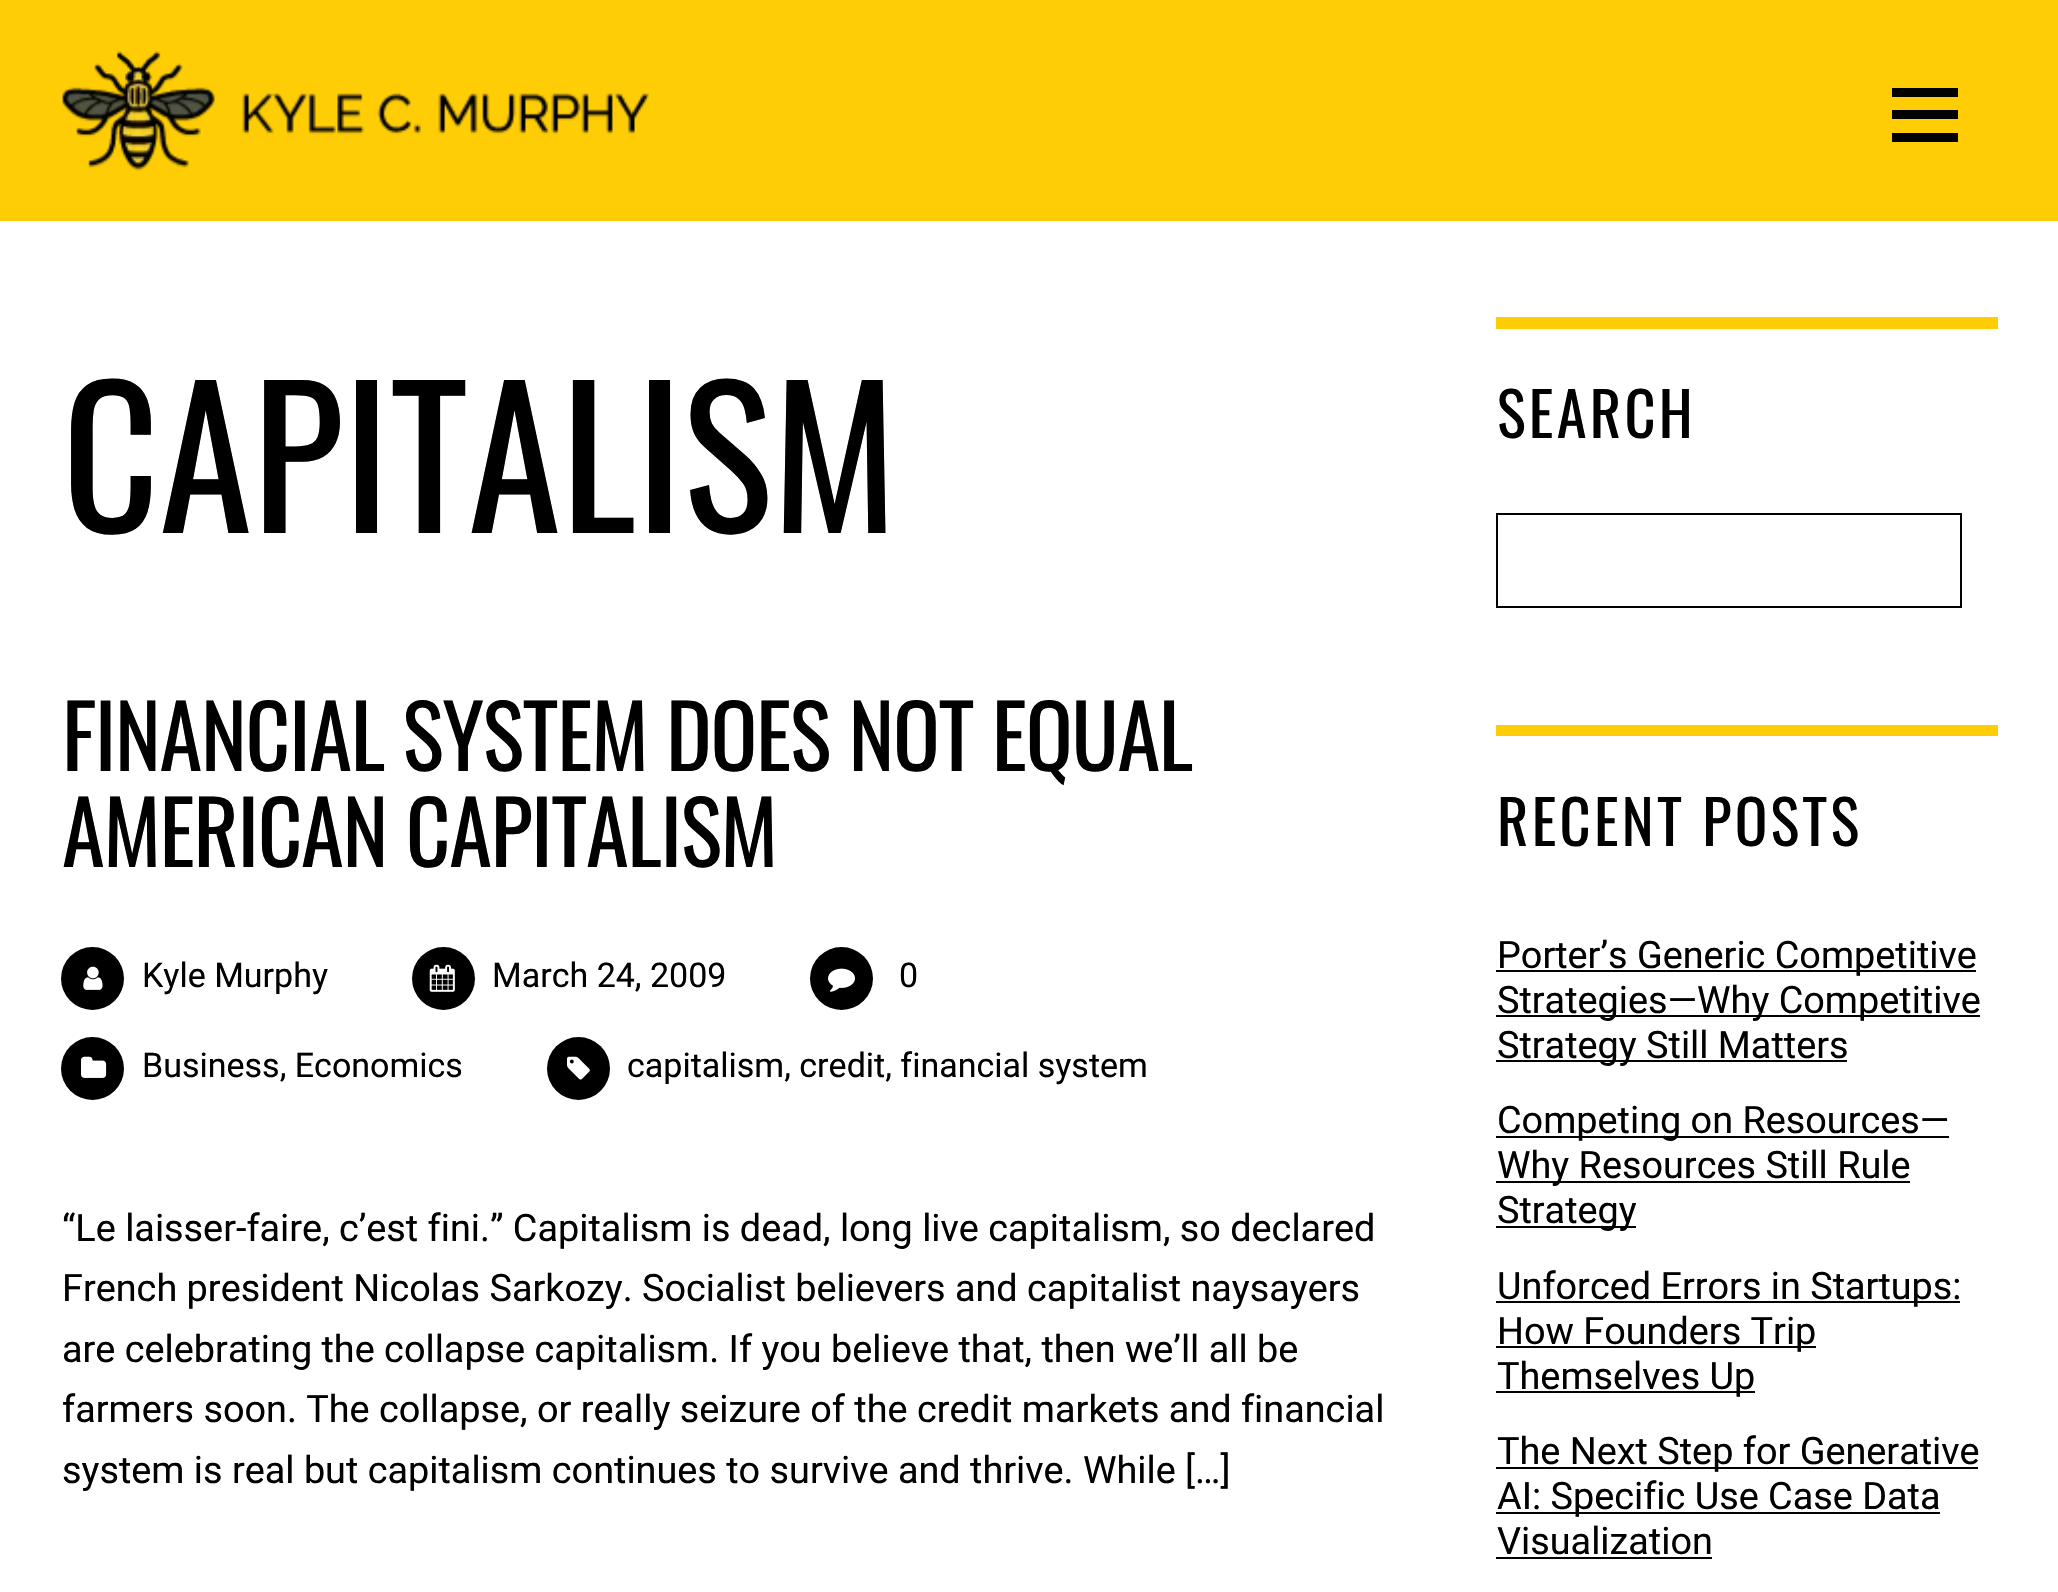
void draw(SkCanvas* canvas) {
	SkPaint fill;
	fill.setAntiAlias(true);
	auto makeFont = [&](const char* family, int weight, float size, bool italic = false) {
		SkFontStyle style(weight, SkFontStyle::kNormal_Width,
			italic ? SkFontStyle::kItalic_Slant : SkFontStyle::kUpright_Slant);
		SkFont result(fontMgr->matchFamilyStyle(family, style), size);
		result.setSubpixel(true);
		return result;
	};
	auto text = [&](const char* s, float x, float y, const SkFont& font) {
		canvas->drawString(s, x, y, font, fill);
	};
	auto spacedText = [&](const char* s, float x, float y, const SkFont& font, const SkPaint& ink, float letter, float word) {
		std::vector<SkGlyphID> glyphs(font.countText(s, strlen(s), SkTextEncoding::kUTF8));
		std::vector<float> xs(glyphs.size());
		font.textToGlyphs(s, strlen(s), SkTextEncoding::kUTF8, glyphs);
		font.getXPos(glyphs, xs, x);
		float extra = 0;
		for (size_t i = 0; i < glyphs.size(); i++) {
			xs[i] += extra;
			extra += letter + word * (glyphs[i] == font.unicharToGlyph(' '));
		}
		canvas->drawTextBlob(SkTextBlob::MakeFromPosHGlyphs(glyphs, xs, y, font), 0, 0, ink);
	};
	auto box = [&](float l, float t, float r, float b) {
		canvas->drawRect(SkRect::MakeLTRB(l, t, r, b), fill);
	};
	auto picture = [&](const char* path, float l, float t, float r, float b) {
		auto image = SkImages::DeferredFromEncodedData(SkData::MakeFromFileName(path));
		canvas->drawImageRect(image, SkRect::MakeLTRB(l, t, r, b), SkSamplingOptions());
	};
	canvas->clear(0xFFFFFFFF);
	fill.setColor(0xFFFECD06);
	box(0, 0, 2058, 221);
	picture("image0.png", 62, 51, 649, 171);
	fill.setColor(0xFF000000);
	box(1892, 88, 1958, 97);
	box(1892, 133, 1958, 142);
	box(1892, 110, 1958, 119);
	canvas->drawCircle(92.5f, 978.5f, 31.5f, fill);
	picture("image1.png", 83, 966, 103, 990);
	canvas->drawCircle(443.5f, 978.5f, 31.5f, fill);
	picture("image2.png", 429, 964, 455, 992);
	canvas->drawCircle(841.5f, 978.5f, 31.5f, fill);
	picture("image3.png", 828, 968, 855, 992);
	canvas->drawCircle(92.5f, 1068.5f, 31.5f, fill);
	picture("image4.png", 81, 1056, 107, 1078);
	canvas->drawCircle(578.5f, 1068.5f, 31.5f, fill);
	picture("image5.png", 567, 1056, 590, 1080);
	fill.setColor(0xFFFECD06);
	box(1496, 317, 1998, 329);
	fill.setStyle(SkPaint::kStroke_Style);
	fill.setStrokeWidth(2);
	fill.setColor(0xFF000000);
	canvas->drawRect(SkRect::MakeLTRB(1497, 514, 1961, 607), fill);
	fill.setStyle(SkPaint::kFill_Style);
	fill.setColor(0xFFFECD06);
	box(1496, 725, 1998, 736);
	fill.setColor(0xFF000000);
	box(1496, 970, 1976, 972);
	box(1496, 1015, 1980, 1017);
	box(1496, 1060, 1847, 1062);
	box(1496, 1136, 1949, 1138);
	box(1496, 1181, 1910, 1183);
	box(1496, 1226, 1636, 1228);
	box(1496, 1301, 1960, 1303);
	box(1496, 1346, 1816, 1348);
	box(1496, 1391, 1755, 1393);
	box(1496, 1467, 1978, 1469);
	box(1496, 1512, 1940, 1514);
	box(1496, 1557, 1712, 1559);
	auto font1 = makeFont("Oswald", 400, 189);
	text("CAPITALISM", 62, 533, font1);
	auto font2 = makeFont("Oswald", 400, 86.9f);
	spacedText("FINANCIAL SYSTEM DOES NOT EQUAL", 62, 771, font2, fill, -1.3f, 0);
	spacedText("AMERICAN CAPITALISM", 62, 867, font2, fill, -1.3f, 0);
	auto font3 = makeFont("Roboto", 400, 34);
	text("Kyle Murphy", 142, 987, font3);
	text("March 24, 2009", 492, 987, font3);
	text("0", 899, 987, font3);
	text("Business, Economics", 142, 1077, font3);
	text("capitalism, credit, financial system", 627, 1077, font3);
	auto font4 = makeFont("Roboto", 400, 37.8f);
	text("“Le laisser-faire, c’est fini.” Capitalism is dead, long live capitalism, so declared", 62, 1241, font4);
	text("French president Nicolas Sarkozy. Socialist believers and capitalist naysayers", 62, 1301, font4);
	text("are celebrating the collapse capitalism. If you believe that, then we’ll all be", 62, 1362, font4);
	text("farmers soon. The collapse, or really seizure of the credit markets and financial", 62, 1422, font4);
	text("system is real but capitalism continues to survive and thrive. While […]", 62, 1483, font4);
	auto font5 = makeFont("Oswald", 400, 60.5f);
	spacedText("SEARCH", 1497, 438, font5, fill, 3.25f, 0);
	spacedText("RECENT POSTS", 1497, 846, font5, fill, 3.25f, 0);
	text("Porter’s Generic Competitive", 1497, 968, font4);
	text("Strategies—Why Competitive", 1497, 1013, font4);
	text("Strategy Still Matters", 1497, 1058, font4);
	text("Competing on Resources—", 1497, 1133, font4);
	text("Why Resources Still Rule", 1497, 1178, font4);
	text("Strategy", 1497, 1223, font4);
	text("Unforced Errors in Startups:", 1497, 1299, font4);
	text("How Founders Trip", 1497, 1344, font4);
	text("Themselves Up", 1497, 1389, font4);
	text("The Next Step for Generative", 1497, 1464, font4);
	text("AI: Specific Use Case Data", 1497, 1509, font4);
	text("Visualization", 1497, 1554, font4);
}
